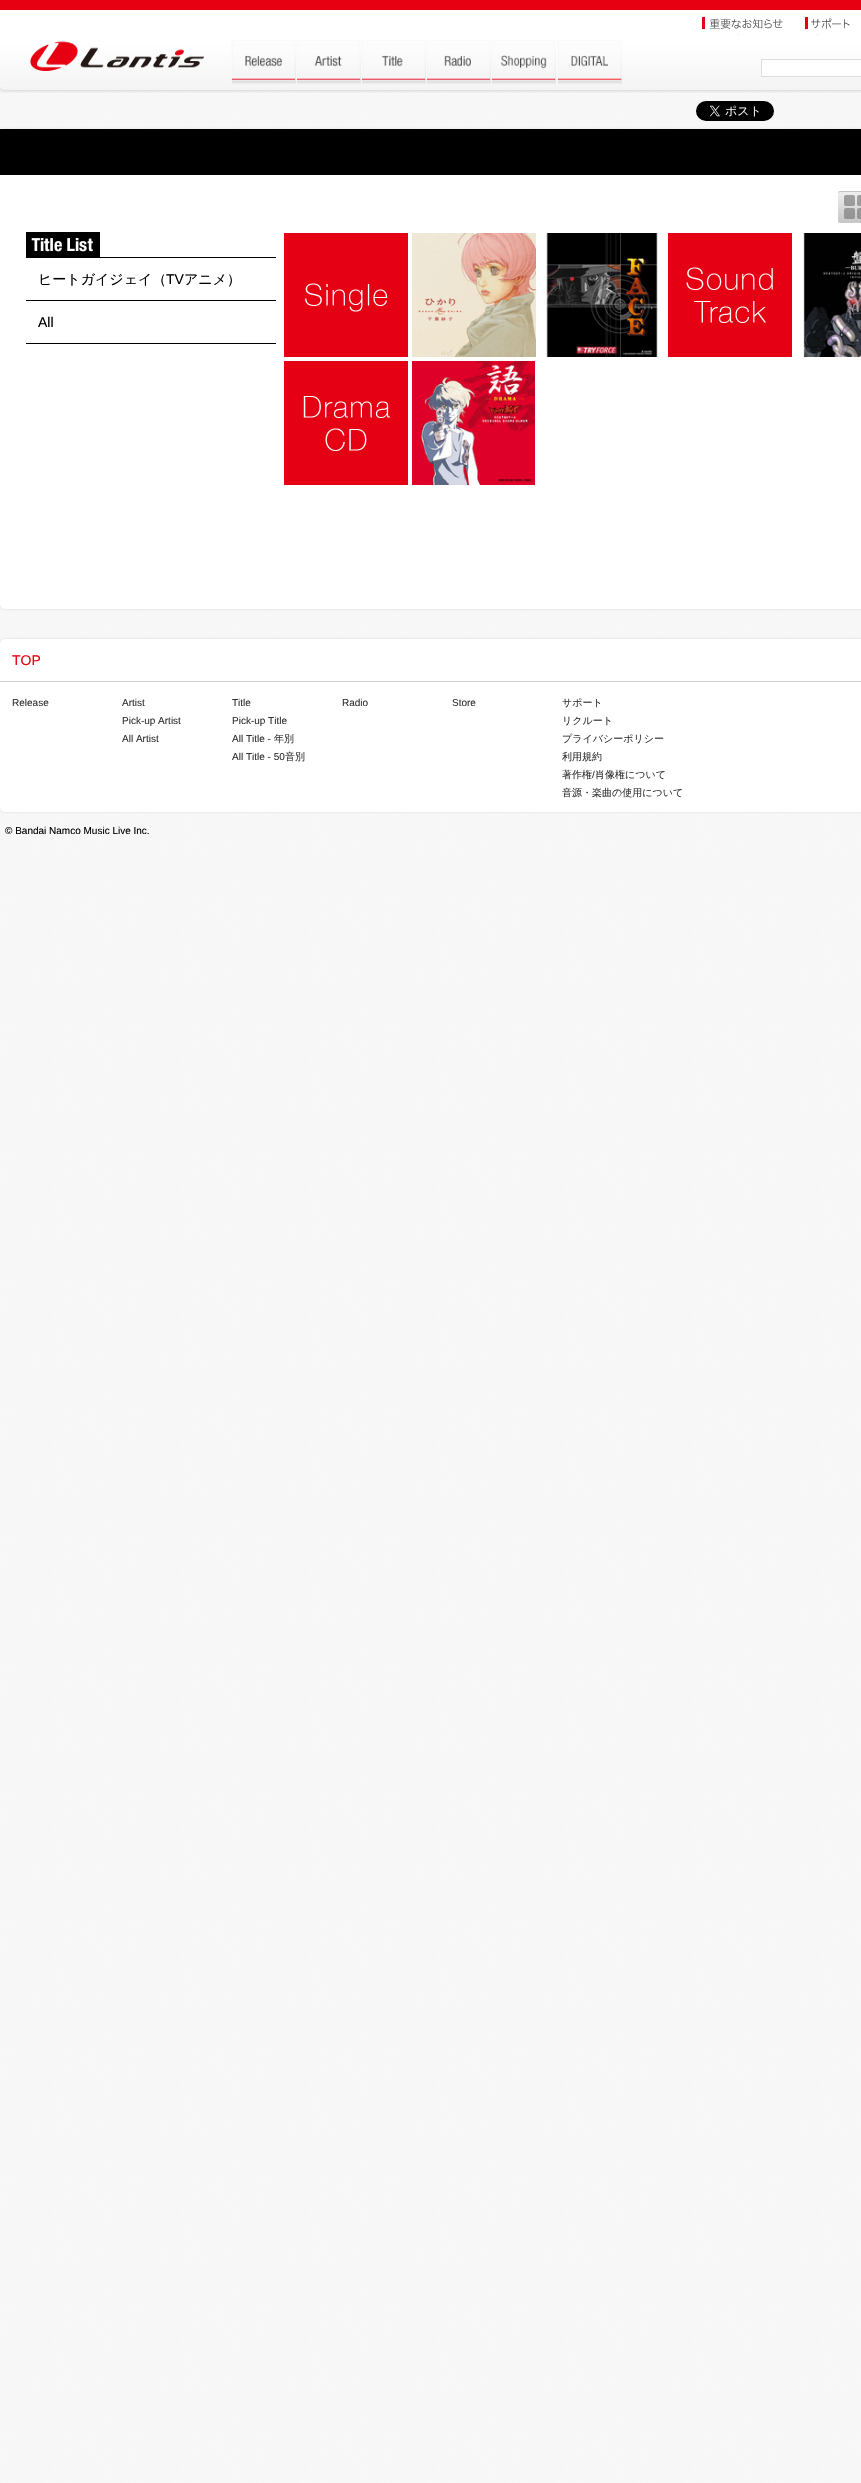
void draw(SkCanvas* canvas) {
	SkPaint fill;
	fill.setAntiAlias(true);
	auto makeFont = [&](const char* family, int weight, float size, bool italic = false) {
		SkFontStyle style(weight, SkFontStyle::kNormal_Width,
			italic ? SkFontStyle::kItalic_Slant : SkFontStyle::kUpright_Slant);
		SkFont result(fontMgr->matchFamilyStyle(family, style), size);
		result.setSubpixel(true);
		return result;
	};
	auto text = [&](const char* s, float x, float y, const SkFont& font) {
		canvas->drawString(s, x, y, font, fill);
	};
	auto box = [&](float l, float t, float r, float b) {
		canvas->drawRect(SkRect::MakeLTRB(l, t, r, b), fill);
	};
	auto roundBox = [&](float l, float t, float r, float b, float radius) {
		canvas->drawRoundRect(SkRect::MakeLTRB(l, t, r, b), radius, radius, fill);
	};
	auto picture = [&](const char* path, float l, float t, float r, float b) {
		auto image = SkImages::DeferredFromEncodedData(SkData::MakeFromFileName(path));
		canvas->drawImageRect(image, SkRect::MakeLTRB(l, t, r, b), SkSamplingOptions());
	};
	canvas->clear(0xFFFFFFFF);
	picture("image0.png", 0, 93, 861, 2483);
	fill.setColor(0xFFE60012);
	box(0, 0, 861, 10);
	picture("image1.png", 0, 10, 861, 93);
	picture("image2.png", 702, 17, 783, 36);
	picture("image3.png", 804, 17, 850, 36);
	picture("image4.png", 30, 41, 204, 71);
	picture("image5.png", 231, 40, 296, 84);
	picture("image6.png", 296, 40, 361, 84);
	picture("image7.png", 361, 40, 426, 84);
	picture("image8.png", 426, 40, 491, 84);
	picture("image9.png", 491, 40, 556, 84);
	picture("image10.png", 557, 40, 622, 84);
	fill.setColor(0xFFFFFFFF);
	canvas->drawRect(SkRect::MakeLTRB(761.5f, 59.5f, 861.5f, 76.5f), fill);
	fill.setStyle(SkPaint::kStroke_Style);
	fill.setStrokeWidth(1);
	fill.setColor(0xFFDDDDDD);
	canvas->drawRect(SkRect::MakeLTRB(761.5f, 59.5f, 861.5f, 76.5f), fill);
	picture("image11.png", 696, 101, 774, 121);
	fill.setStyle(SkPaint::kFill_Style);
	fill.setMaskFilter(SkMaskFilter::MakeBlur(kNormal_SkBlurStyle, 1.5f));
	canvas->drawRoundRect(SkRect::MakeLTRB(0, 129, 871, 609), 5, 5, fill);
	fill.setMaskFilter(nullptr);
	fill.setColor(0xFFFFFFFF);
	roundBox(0, 129, 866, 609, 5);
	fill.setColor(0xFF000000);
	box(0, 129, 861, 175);
	box(26, 257, 276, 258);
	picture("image12.png", 26, 232, 100, 257);
	box(26, 300, 276, 301);
	box(26, 343, 276, 344);
	picture("image13.png", 838, 191, 861, 223);
	picture("image14.png", 284, 233, 408, 357);
	picture("image15.png", 412, 233, 536, 357);
	picture("image16.png", 546, 233, 658, 357);
	picture("image17.png", 668, 233, 792, 357);
	picture("image18.png", 803, 233, 861, 357);
	picture("image19.png", 284, 361, 408, 485);
	picture("image20.png", 412, 361, 535, 485);
	fill.setColor(0xFFDDDDDD);
	fill.setMaskFilter(SkMaskFilter::MakeBlur(kNormal_SkBlurStyle, 1.5f));
	canvas->drawRoundRect(SkRect::MakeLTRB(0, 639, 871, 812), 5, 5, fill);
	fill.setMaskFilter(nullptr);
	fill.setColor(0xFFFFFFFF);
	roundBox(0, 639, 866, 812, 5);
	fill.setColor(0xFFCCCCCC);
	box(0, 681, 861, 682);
	auto font1 = makeFont("WenQuanYi Zen Hei", 500, 14);
	fill.setColor(0xFF000000);
	text("ヒートガイジェイ（", 38, 284, font1);
	auto font2 = makeFont("Liberation Sans", 400, 14);
	text("TV", 166, 284, font2);
	text("アニメ）", 184, 284, font1);
	text("All", 38, 327, font2);
	fill.setColor(0xFFE60012);
	text("TOP", 12, 665, font2);
	auto font3 = makeFont("Liberation Sans", 400, 10);
	fill.setColor(0xFF333333);
	text("Release", 12, 706, font3);
	text("Artist", 122, 706, font3);
	text("Pick-up Artist", 122, 724, font3);
	text("All Artist", 122, 742, font3);
	text("Title", 232, 706, font3);
	text("Pick-up Title", 232, 724, font3);
	text("All Title -", 232, 742, font3);
	auto font4 = makeFont("WenQuanYi Zen Hei", 500, 10);
	text("年別", 274, 742, font4);
	text("All Title - 50", 232, 760, font3);
	text("音別", 285, 760, font4);
	text("Radio", 342, 706, font3);
	text("Store", 452, 706, font3);
	text("サポート", 562, 706, font4);
	text("リクルート", 562, 724, font4);
	text("プライバシーポリシー", 562, 742, font4);
	text("利用規約", 562, 760, font4);
	text("著作権 肖像権について", 562, 778, font4);
	text("/", 592, 778, font3);
	text("音源・楽曲の使用について", 562, 796, font4);
	fill.setColor(0xFF000000);
	text("© Bandai Namco Music Live Inc.", 5, 834, font3);
}
